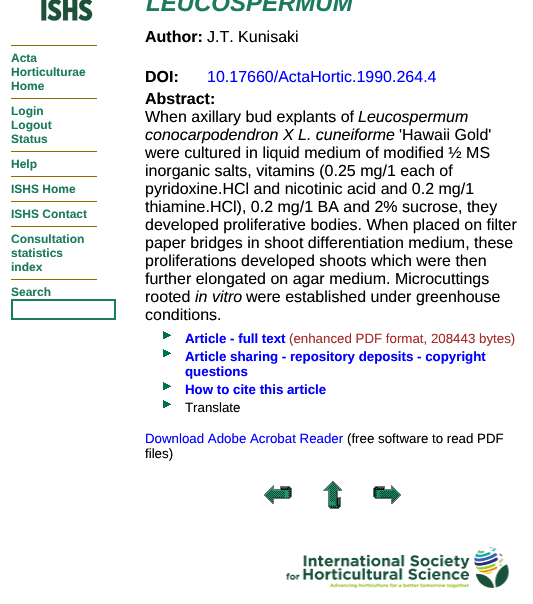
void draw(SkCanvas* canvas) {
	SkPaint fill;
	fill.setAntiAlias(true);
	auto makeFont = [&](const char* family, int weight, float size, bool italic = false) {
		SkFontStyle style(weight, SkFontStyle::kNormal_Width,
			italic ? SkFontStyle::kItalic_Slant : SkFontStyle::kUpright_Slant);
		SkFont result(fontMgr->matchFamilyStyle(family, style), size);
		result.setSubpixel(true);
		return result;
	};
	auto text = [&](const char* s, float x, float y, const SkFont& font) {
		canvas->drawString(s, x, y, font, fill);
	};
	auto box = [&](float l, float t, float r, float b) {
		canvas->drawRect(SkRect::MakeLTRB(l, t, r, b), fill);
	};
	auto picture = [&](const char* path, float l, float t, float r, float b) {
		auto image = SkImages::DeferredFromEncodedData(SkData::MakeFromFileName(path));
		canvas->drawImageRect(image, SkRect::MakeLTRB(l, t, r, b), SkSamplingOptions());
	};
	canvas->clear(0xFFFFFFFF);
	picture("image0.png", 41, 0, 93, 21);
	fill.setColor(0xFF996600);
	box(11, 45, 97, 46);
	box(11, 98, 97, 99);
	box(11, 151, 97, 152);
	box(11, 176, 97, 177);
	box(11, 201, 97, 202);
	box(11, 226, 97, 227);
	box(11, 279, 97, 280);
	fill.setStyle(SkPaint::kStroke_Style);
	fill.setStrokeWidth(2);
	fill.setColor(0xFF1C7A5F);
	canvas->drawRect(SkRect::MakeLTRB(12, 300, 115, 319), fill);
	picture("image1.png", 163, 331, 171, 339);
	picture("image1.png", 163, 349, 171, 357);
	picture("image1.png", 163, 382, 171, 390);
	picture("image1.png", 163, 400, 171, 408);
	picture("image2.png", 264, 485, 292, 504);
	picture("image3.png", 323, 481, 342, 509);
	picture("image4.png", 373, 485, 401, 504);
	picture("image5.png", 286, 547, 509, 588);
	auto font1 = makeFont("Liberation Sans", 700, 12);
	fill.setStyle(SkPaint::kFill_Style);
	text("Acta", 11, 62, font1);
	text("Horticulturae", 11, 76, font1);
	text("Home", 11, 90, font1);
	text("Login", 11, 115, font1);
	text("Logout", 11, 129, font1);
	text("Status", 11, 143, font1);
	text("Help", 11, 168, font1);
	text("ISHS Home", 11, 193, font1);
	text("ISHS Contact", 11, 218, font1);
	text("Consultation", 11, 243, font1);
	text("statistics", 11, 257, font1);
	text("index", 11, 271, font1);
	text("Search", 11, 296, font1);
	auto font2 = makeFont("Liberation Sans", 700, 24, true);
	text("LEUCOSPERMUM", 146, 11, font2);
	auto font3 = makeFont("Liberation Sans", 700, 16);
	fill.setColor(0xFF000000);
	text("Author:", 145, 42, font3);
	auto font4 = makeFont("Liberation Sans", 400, 16);
	text("J.T. Kunisaki", 207, 42, font4);
	text("DOI:", 145, 82, font3);
	fill.setColor(0xFF0000FF);
	text("10.17660/ActaHortic.1990.264.4", 207, 82, font4);
	fill.setColor(0xFF000000);
	text("Abstract:", 145, 104, font3);
	text("When axillary bud explants of", 145, 122, font4);
	auto font5 = makeFont("Liberation Sans", 400, 16, true);
	text("Leucospermum", 358, 122, font5);
	text("conocarpodendron X L. cuneiforme", 145, 140, font5);
	text("'Hawaii Gold'", 399, 140, font4);
	text("were cultured in liquid medium of modified ½ MS", 145, 158, font4);
	text("inorganic salts, vitamins (0.25 mg/1 each of", 145, 176, font4);
	text("pyridoxine.HCl and nicotinic acid and 0.2 mg/1", 145, 194, font4);
	text("thiamine.HCl), 0.2 mg/1 BA and 2% sucrose, they", 145, 212, font4);
	text("developed proliferative bodies. When placed on filter", 145, 230, font4);
	text("paper bridges in shoot differentiation medium, these", 145, 248, font4);
	text("proliferations developed shoots which were then", 145, 266, font4);
	text("further elongated on agar medium. Microcuttings", 145, 284, font4);
	text("rooted", 145, 302, font4);
	text("in vitro", 195, 302, font5);
	text("were established under greenhouse", 246, 302, font4);
	text("conditions.", 145, 320, font4);
	auto font6 = makeFont("Liberation Sans", 700, 13.3f);
	fill.setColor(0xFF0000FF);
	text("Article - full text", 185, 343, font6);
	auto font7 = makeFont("Liberation Sans", 400, 13.3f);
	fill.setColor(0xFFA52A2A);
	text("(enhanced PDF format, 208443 bytes)", 289, 343, font7);
	fill.setColor(0xFF0000FF);
	text("Article sharing - repository deposits - copyright", 185, 361, font6);
	text("questions", 185, 376, font6);
	text("How to cite this article", 185, 394, font6);
	fill.setColor(0xFF000000);
	text("Translate", 185, 412, font7);
	fill.setColor(0xFF0000FF);
	text("Download Adobe Acrobat Reader", 145, 443, font7);
	fill.setColor(0xFF000000);
	text("(free software to read PDF", 347, 443, font7);
	text("files)", 145, 458, font7);
}
